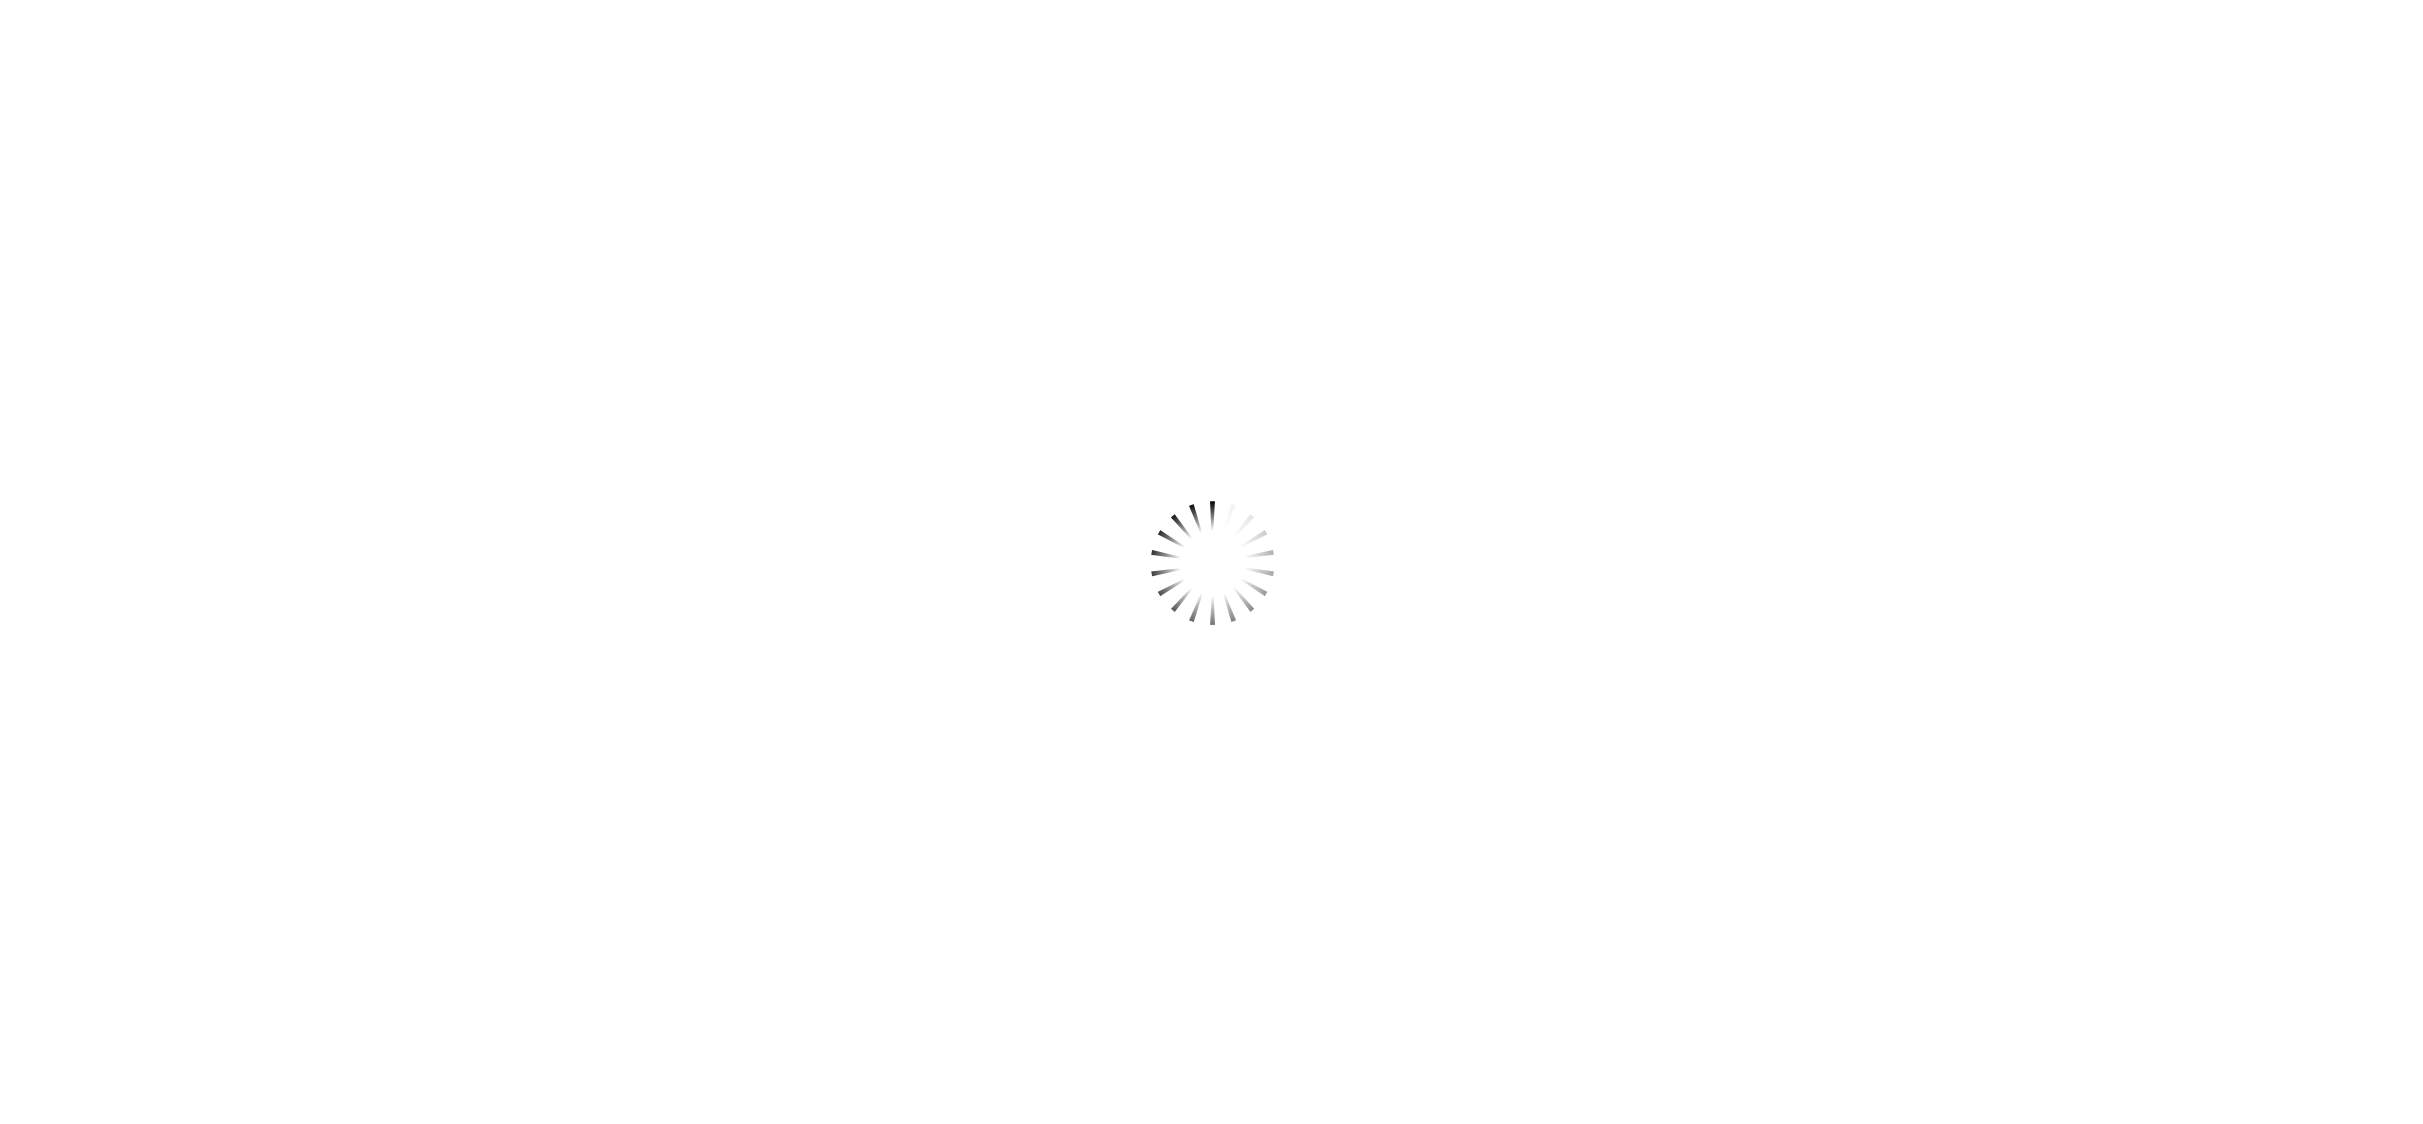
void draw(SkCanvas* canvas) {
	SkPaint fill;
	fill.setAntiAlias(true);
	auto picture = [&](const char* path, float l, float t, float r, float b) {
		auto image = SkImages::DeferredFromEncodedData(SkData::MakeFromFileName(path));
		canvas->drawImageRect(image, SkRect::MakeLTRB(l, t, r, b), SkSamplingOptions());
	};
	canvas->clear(0xFFFFFFFF);
	picture("image0.png", 1151, 501, 1274, 625);
}
